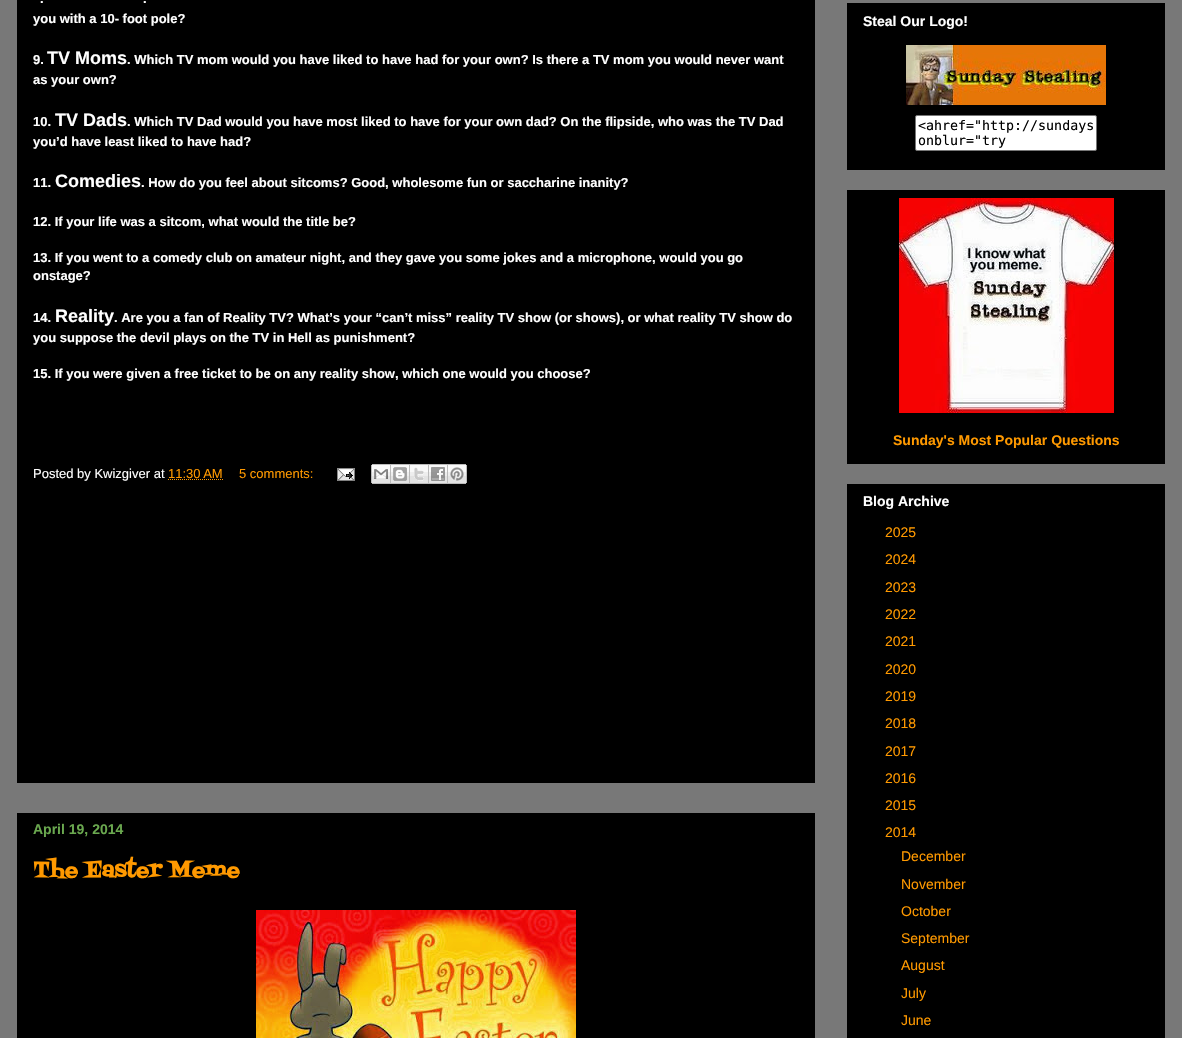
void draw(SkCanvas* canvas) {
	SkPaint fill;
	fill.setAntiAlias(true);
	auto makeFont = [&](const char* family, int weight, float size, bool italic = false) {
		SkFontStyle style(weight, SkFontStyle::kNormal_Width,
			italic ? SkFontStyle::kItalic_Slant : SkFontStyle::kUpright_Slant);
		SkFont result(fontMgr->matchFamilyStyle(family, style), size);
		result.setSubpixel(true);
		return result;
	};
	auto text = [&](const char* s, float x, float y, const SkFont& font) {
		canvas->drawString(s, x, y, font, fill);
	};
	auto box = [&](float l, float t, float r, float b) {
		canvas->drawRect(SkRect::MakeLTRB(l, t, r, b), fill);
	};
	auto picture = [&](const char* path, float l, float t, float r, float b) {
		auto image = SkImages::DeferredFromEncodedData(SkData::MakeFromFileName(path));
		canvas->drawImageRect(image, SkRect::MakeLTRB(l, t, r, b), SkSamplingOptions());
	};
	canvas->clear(0xFF787878);
	fill.setColor(0xFF000000);
	box(17, 0, 815, 783);
	fill.setStyle(SkPaint::kStroke_Style);
	fill.setStrokeWidth(1);
	fill.setColor(0xFFFF9900);
	fill.setPathEffect(SkDashPathEffect::Make({{1, 1}}, 0));
	canvas->drawPath(SkPathBuilder().moveTo(168, 479.5f).lineTo(223, 479.5f).detach(), fill);
	fill.setPathEffect(nullptr);
	picture("image0.png", 337, 468, 355, 481);
	picture("image1.png", 371, 464, 391, 484);
	picture("image2.png", 391, 464, 410, 484);
	picture("image3.png", 410, 464, 429, 484);
	picture("image4.png", 429, 464, 448, 484);
	picture("image5.png", 448, 464, 467, 484);
	fill.setStyle(SkPaint::kFill_Style);
	fill.setColor(0xFF000000);
	box(17, 813, 815, 1038);
	picture("image6.png", 256, 910, 576, 1038);
	box(847, 3, 1165, 170);
	picture("image7.png", 906, 45, 1106, 105);
	fill.setColor(0xFFFFFFFF);
	canvas->drawRoundRect(SkRect::MakeLTRB(915.5f, 115.5f, 1096.5f, 150.5f), 1.5f, 1.5f, fill);
	fill.setStyle(SkPaint::kStroke_Style);
	fill.setColor(0xFF767676);
	canvas->drawRoundRect(SkRect::MakeLTRB(915.5f, 115.5f, 1096.5f, 150.5f), 1.5f, 1.5f, fill);
	fill.setStyle(SkPaint::kFill_Style);
	fill.setColor(0xFF000000);
	box(847, 190, 1165, 464);
	picture("image8.png", 899, 198, 1114, 413);
	box(847, 484, 1165, 1038);
	auto font1 = makeFont("Liberation Sans", 700, 13);
	fill.setColor(0xFFFFFFFF);
	text(".", 40, 3, font1);
	text(".", 143, 3, font1);
	text("you with a 10- foot pole?", 33, 23, font1);
	text("9.", 33, 64, font1);
	auto font2 = makeFont("Liberation Sans", 700, 18);
	text("TV Moms", 47, 64, font2);
	text(". Which TV mom would you have liked to have had for your own? Is there a TV mom you would never want", 127, 64, font1);
	text("as your own?", 33, 84, font1);
	text("10.", 33, 126, font1);
	text("TV Dads", 55, 126, font2);
	text(". Which TV Dad would you have most liked to have for your own dad? On the flipside, who was the TV Dad", 127, 126, font1);
	text("you’d have least liked to have had?", 33, 146, font1);
	text("11.", 33, 187, font1);
	text("Comedies", 55, 187, font2);
	text(". How do you feel about sitcoms? Good, wholesome fun or saccharine inanity?", 141, 187, font1);
	text("12. If your life was a sitcom, what would the title be?", 33, 226, font1);
	text("13. If you went to a comedy club on amateur night, and they gave you some jokes and a microphone, would you go", 33, 262, font1);
	text("onstage?", 33, 280, font1);
	text("14.", 33, 322, font1);
	text("Reality", 55, 322, font2);
	text(". Are you a fan of Reality TV? What’s your “can’t miss” reality TV show (or shows), or what reality TV show do", 114, 322, font1);
	text("you suppose the devil plays on the TV in Hell as punishment?", 33, 342, font1);
	text("15. If you were given a free ticket to be on any reality show, which one would you choose?", 33, 378, font1);
	auto font3 = makeFont("Liberation Sans", 400, 13);
	text("Posted by Kwizgiver at", 33, 478, font3);
	fill.setColor(0xFFFF9900);
	text("11:30 AM", 168, 478, font3);
	text("5 comments:", 239, 478, font3);
	auto font4 = makeFont("Liberation Sans", 700, 14);
	fill.setColor(0xFF6AA84F);
	text("April 19, 2014", 33, 834, font4);
	auto font5 = makeFont("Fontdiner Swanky", 700, 22);
	fill.setColor(0xFFFF9900);
	text("The Easter Meme", 33, 877, font5);
	fill.setColor(0xFFFFFFFF);
	text("Steal Our Logo!", 863, 26, font4);
	auto font6 = makeFont("DejaVu Sans Mono", 400, 13.3f);
	fill.setColor(0xFF000000);
	text("<ahref=\"http://sundays", 918, 130, font6);
	text("onblur=\"try", 918, 145, font6);
	fill.setColor(0xFFFF9900);
	text("Sunday's Most Popular Questions", 893, 445, font4);
	fill.setColor(0xFFFFFFFF);
	text("Blog Archive", 863, 506, font4);
	auto font7 = makeFont("Liberation Sans", 400, 14);
	fill.setColor(0xFFFF9900);
	text("2025", 885, 537, font7);
	text("2024", 885, 564, font7);
	text("2023", 885, 592, font7);
	text("2022", 885, 619, font7);
	text("2021", 885, 646, font7);
	text("2020", 885, 674, font7);
	text("2019", 885, 701, font7);
	text("2018", 885, 728, font7);
	text("2017", 885, 756, font7);
	text("2016", 885, 783, font7);
	text("2015", 885, 810, font7);
	text("2014", 885, 837, font7);
	text("December", 901, 861, font7);
	text("November", 901, 889, font7);
	text("October", 901, 916, font7);
	text("September", 901, 943, font7);
	text("August", 901, 970, font7);
	text("July", 901, 998, font7);
	text("June", 901, 1025, font7);
}
